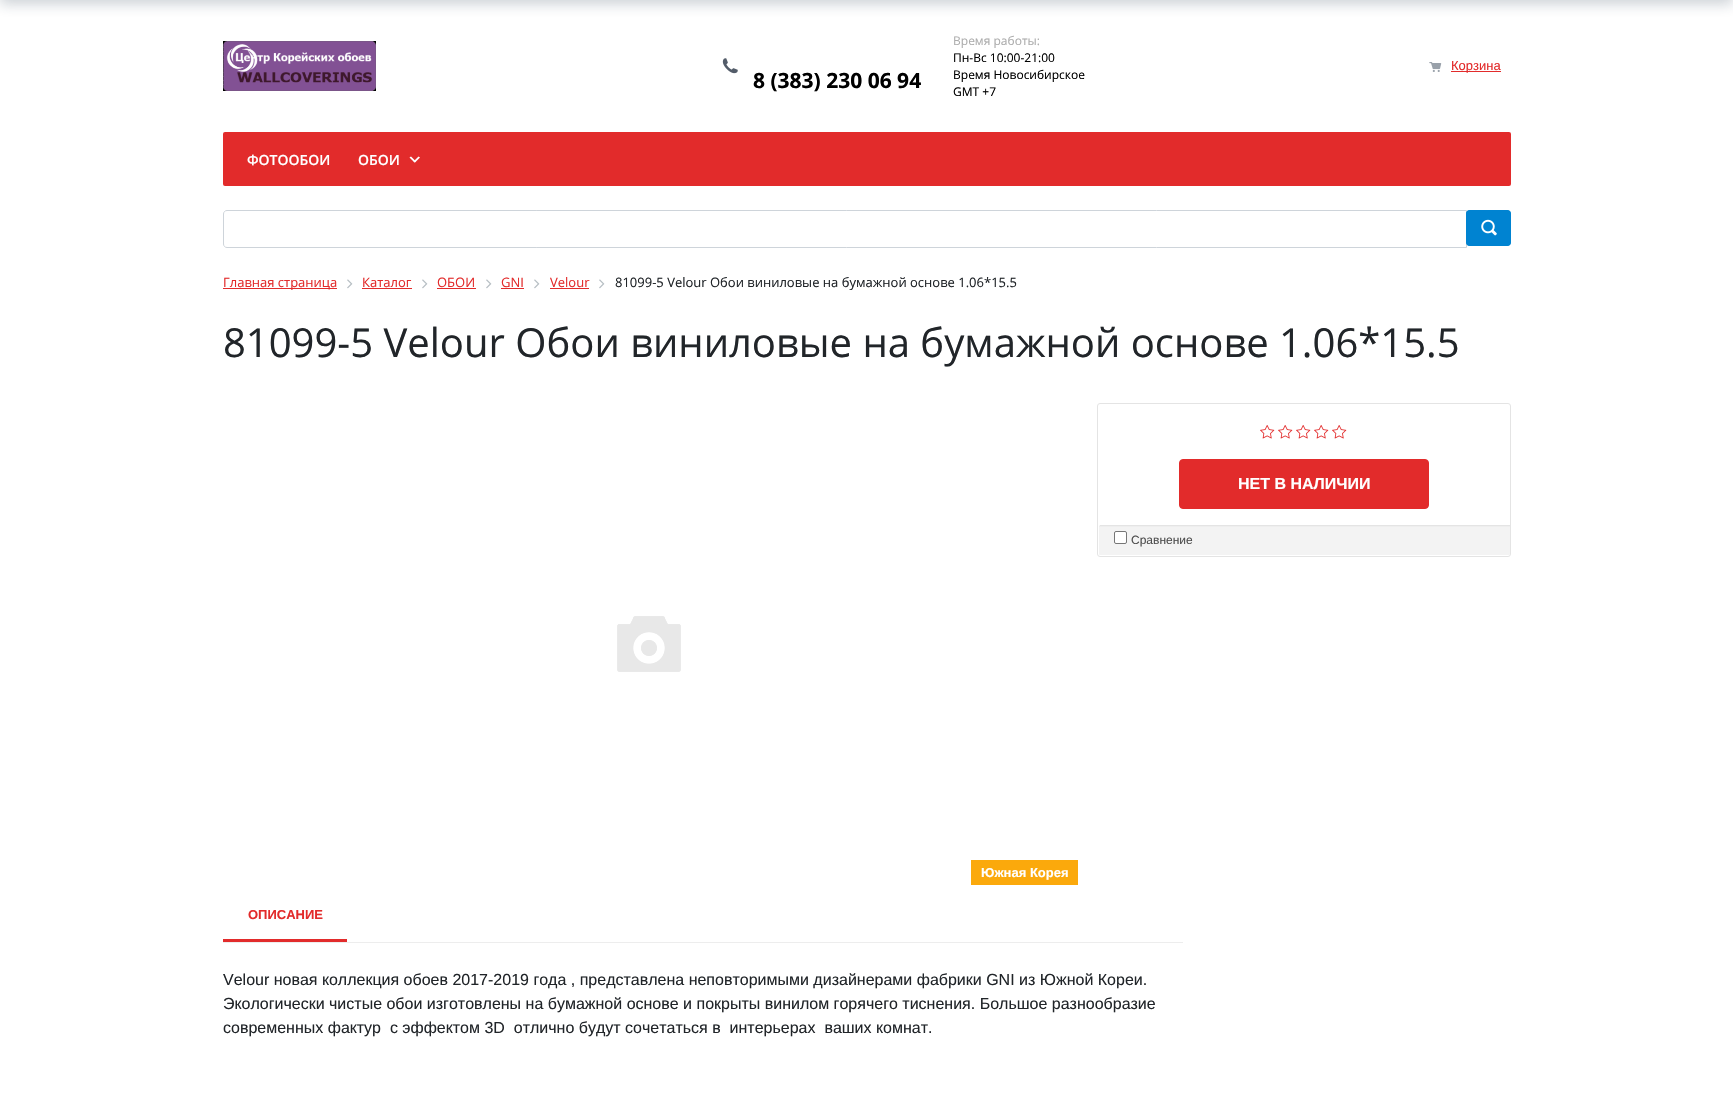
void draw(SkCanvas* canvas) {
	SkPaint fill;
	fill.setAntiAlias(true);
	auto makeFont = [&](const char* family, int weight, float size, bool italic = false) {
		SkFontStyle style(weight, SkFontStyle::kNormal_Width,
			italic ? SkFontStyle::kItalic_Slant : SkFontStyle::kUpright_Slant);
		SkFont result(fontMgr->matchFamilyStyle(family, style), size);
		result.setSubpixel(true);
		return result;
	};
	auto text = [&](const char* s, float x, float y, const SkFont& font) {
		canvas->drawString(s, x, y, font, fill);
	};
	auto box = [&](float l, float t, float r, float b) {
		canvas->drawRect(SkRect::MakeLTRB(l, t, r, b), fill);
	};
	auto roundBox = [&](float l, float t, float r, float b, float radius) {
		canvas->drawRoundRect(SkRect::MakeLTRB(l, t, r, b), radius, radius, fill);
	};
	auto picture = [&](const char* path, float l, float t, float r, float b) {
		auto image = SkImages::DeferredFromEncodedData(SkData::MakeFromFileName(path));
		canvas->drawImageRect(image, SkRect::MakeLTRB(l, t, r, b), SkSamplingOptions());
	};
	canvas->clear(0xFFFFFFFF);
	picture("image0.png", 223, 41, 376, 91);
	picture("image1.png", 722, 58, 738, 74);
	picture("image2.png", 1429, 62, 1442, 72);
	fill.setColor(0xFFE22B2B);
	box(1451, 71, 1501, 72);
	roundBox(223, 132, 1511, 186, 2);
	fill.setColor(0xFFFFFFFF);
	canvas->drawPath(SkPathBuilder().moveTo(413.5f, 161.5f).lineTo(418.5f, 156.5f).lineTo(420, 157.5f).lineTo(415, 162.5f).close().detach(), fill);
	canvas->drawPath(SkPathBuilder().moveTo(411, 156.5f).lineTo(416, 161.5f).lineTo(414.5f, 162.5f).lineTo(409.5f, 157.5f).close().detach(), fill);
	fill.setStyle(SkPaint::kStroke_Style);
	fill.setStrokeWidth(1);
	fill.setColor(0xFFCED4DA);
	canvas->drawPath(SkPathBuilder().moveTo(227, 210.5f).lineTo(1466.5f, 210.5f).lineTo(1466.5f, 247.5f).lineTo(227, 247.5f).cubicTo(225, 247.5f, 223.5f, 246, 223.5f, 244).lineTo(223.5f, 214).cubicTo(223.5f, 212, 225, 210.5f, 227, 210.5f).close().detach(), fill);
	fill.setStyle(SkPaint::kFill_Style);
	fill.setColor(0xFF0083D1);
	roundBox(1466, 210, 1511, 246, 4);
	picture("image3.png", 1481, 219, 1497, 236);
	fill.setStyle(SkPaint::kStroke_Style);
	canvas->drawRoundRect(SkRect::MakeLTRB(1466.5f, 210.5f, 1510.5f, 245.5f), 3.5f, 3.5f, fill);
	fill.setStyle(SkPaint::kFill_Style);
	fill.setColor(0xFFE22B2B);
	box(223, 288, 337, 289);
	picture("image4.png", 347, 279, 353, 289);
	box(362, 288, 412, 289);
	picture("image4.png", 422, 279, 428, 289);
	box(437, 288, 476, 289);
	picture("image4.png", 486, 279, 492, 289);
	box(501, 288, 524, 289);
	picture("image4.png", 534, 279, 540, 289);
	box(550, 288, 589, 289);
	picture("image4.png", 599, 279, 605, 289);
	fill.setColor(0x3B20364A);
	fill.setMaskFilter(SkMaskFilter::MakeBlur(kNormal_SkBlurStyle, 7));
	canvas->drawRect(SkRect::MakeLTRB(0, -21, 1733, 4), fill);
	fill.setMaskFilter(nullptr);
	fill.setStyle(SkPaint::kStroke_Style);
	fill.setColor(0xFFE4E4E4);
	canvas->drawRoundRect(SkRect::MakeLTRB(1097.5f, 403.5f, 1510.5f, 556.5f), 2.5f, 2.5f, fill);
	picture("image5.png", 1260, 425, 1275, 439);
	picture("image5.png", 1278, 425, 1293, 439);
	picture("image5.png", 1296, 425, 1311, 439);
	picture("image5.png", 1314, 425, 1329, 439);
	picture("image5.png", 1332, 425, 1347, 439);
	fill.setStyle(SkPaint::kFill_Style);
	fill.setColor(0xFFE22B2B);
	canvas->drawRoundRect(SkRect::MakeLTRB(1179.5f, 459.5f, 1428.5f, 508.5f), 3.5f, 3.5f, fill);
	fill.setStyle(SkPaint::kStroke_Style);
	canvas->drawRoundRect(SkRect::MakeLTRB(1179.5f, 459.5f, 1428.5f, 508.5f), 3.5f, 3.5f, fill);
	fill.setStyle(SkPaint::kFill_Style);
	fill.setColor(0xFFF3F3F3);
	roundBox(1099, 525, 1510, 555, 1);
	fill.setColor(0xFFEEEEEE);
	canvas->drawPath(SkPathBuilder().moveTo(1509, 526).lineTo(1099, 526).lineTo(1099, 527).lineTo(1510, 527).lineTo(1510, 526).close().detach(), fill);
	fill.setColor(0xFFE4E4E4);
	box(1100, 525, 1510, 526);
	fill.setColor(0xFFFFFFFF);
	canvas->drawRoundRect(SkRect::MakeLTRB(1114.5f, 531.5f, 1126.5f, 543.5f), 1.5f, 1.5f, fill);
	fill.setStyle(SkPaint::kStroke_Style);
	fill.setColor(0xFF767676);
	canvas->drawRoundRect(SkRect::MakeLTRB(1114.5f, 531.5f, 1126.5f, 543.5f), 1.5f, 1.5f, fill);
	picture("image6.png", 617, 616, 681, 672);
	fill.setStyle(SkPaint::kFill_Style);
	fill.setColor(0xFFFBA90C);
	box(971, 860, 1078, 885);
	fill.setColor(0xFFEDEDED);
	box(223, 942, 1183, 943);
	fill.setColor(0xFFE22B2B);
	box(223, 939, 347, 942);
	auto font1 = makeFont("Open Sans", 700, 21);
	fill.setColor(0xFF000000);
	text("8 (383) 230 06 94", 753, 88, font1);
	auto font2 = makeFont("Open Sans", 400, 12);
	fill.setColor(0xFFADADAD);
	text("Время работы:", 953, 45, font2);
	fill.setColor(0xFF000000);
	text("Пн-Вс 10:00-21:00", 953, 62, font2);
	text("Время Новосибирское", 953, 79, font2);
	text("GMT +7", 953, 96, font2);
	auto font3 = makeFont("Liberation Sans", 400, 13);
	fill.setColor(0xFFE22B2B);
	text("Корзина", 1451, 70, font3);
	auto font4 = makeFont("Open Sans", 600, 14);
	fill.setColor(0xFFFFFFFF);
	text("ФОТООБОИ", 247, 165, font4);
	text("ОБОИ", 358, 165, font4);
	auto font5 = makeFont("Open Sans", 400, 13);
	fill.setColor(0xFFE22B2B);
	text("Главная страница", 223, 287, font5);
	text("Каталог", 362, 287, font5);
	text("ОБОИ", 437, 287, font5);
	text("GNI", 501, 287, font5);
	text("Velour", 550, 287, font5);
	fill.setColor(0xFF212529);
	text("81099-5 Velour Обои виниловые на бумажной основе 1.06*15.5", 615, 287, font5);
	auto font6 = makeFont("Open Sans", 400, 40);
	text("81099-5 Velour Обои виниловые на бумажной основе 1.06*15.5", 223, 357, font6);
	auto font7 = makeFont("Liberation Sans", 700, 16);
	fill.setColor(0xFFFFFFFF);
	text("НЕТ В НАЛИЧИИ", 1238, 489, font7);
	auto font8 = makeFont("Liberation Sans", 400, 12);
	fill.setColor(0xFF4E4E4E);
	text("Сравнение", 1131, 544, font8);
	auto font9 = makeFont("Liberation Sans", 700, 13);
	fill.setColor(0xFFFFFFFF);
	text("Южная Корея", 981, 877, font9);
	fill.setColor(0xFFE22B2B);
	text("ОПИСАНИЕ", 248, 919, font9);
	auto font10 = makeFont("Liberation Sans", 400, 16);
	fill.setColor(0xFF212529);
	text("Velour новая коллекция обоев 2017-2019 года , представлена неповторимыми дизайнерами фабрики GNI из Южной Кореи.", 223, 985, font10);
	text("Экологически чистые обои изготовлены на бумажной основе и покрыты винилом горячего тиснения. Большое разнообразие", 223, 1009, font10);
	text("современных фактур  с эффектом 3D  отлично будут сочетаться в  интерьерах  ваших комнат.", 223, 1033, font10);
}
